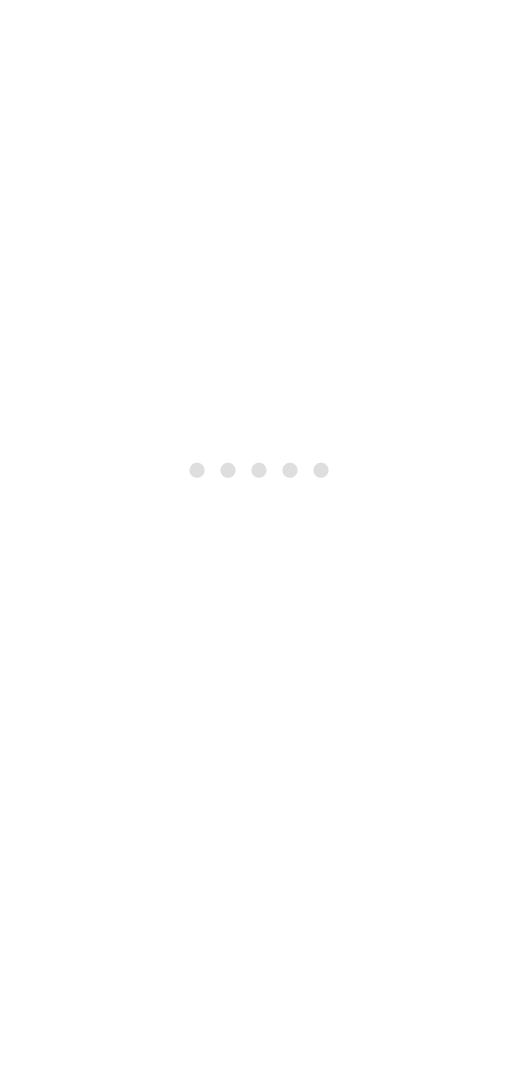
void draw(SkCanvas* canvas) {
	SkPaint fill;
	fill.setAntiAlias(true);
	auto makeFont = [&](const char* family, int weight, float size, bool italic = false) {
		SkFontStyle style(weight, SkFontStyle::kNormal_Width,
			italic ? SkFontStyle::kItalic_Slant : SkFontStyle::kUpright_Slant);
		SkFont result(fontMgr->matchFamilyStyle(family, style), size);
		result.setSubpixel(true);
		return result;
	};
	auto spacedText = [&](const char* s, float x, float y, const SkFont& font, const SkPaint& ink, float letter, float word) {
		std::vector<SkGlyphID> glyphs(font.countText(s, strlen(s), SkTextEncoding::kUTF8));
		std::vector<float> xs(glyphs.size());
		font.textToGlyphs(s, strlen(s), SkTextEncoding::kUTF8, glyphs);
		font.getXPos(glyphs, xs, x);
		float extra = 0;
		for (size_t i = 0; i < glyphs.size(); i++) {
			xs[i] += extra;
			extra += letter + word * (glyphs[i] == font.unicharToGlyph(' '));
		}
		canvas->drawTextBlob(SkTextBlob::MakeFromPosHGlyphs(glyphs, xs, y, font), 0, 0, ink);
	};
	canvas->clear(0xFFFFFFFF);
	auto font1 = makeFont("Liberation Serif", 400, 128);
	fill.setColor(0xFFDEDEDE);
	spacedText(".....", 181, 476, font1, fill, -1, 0);
}
